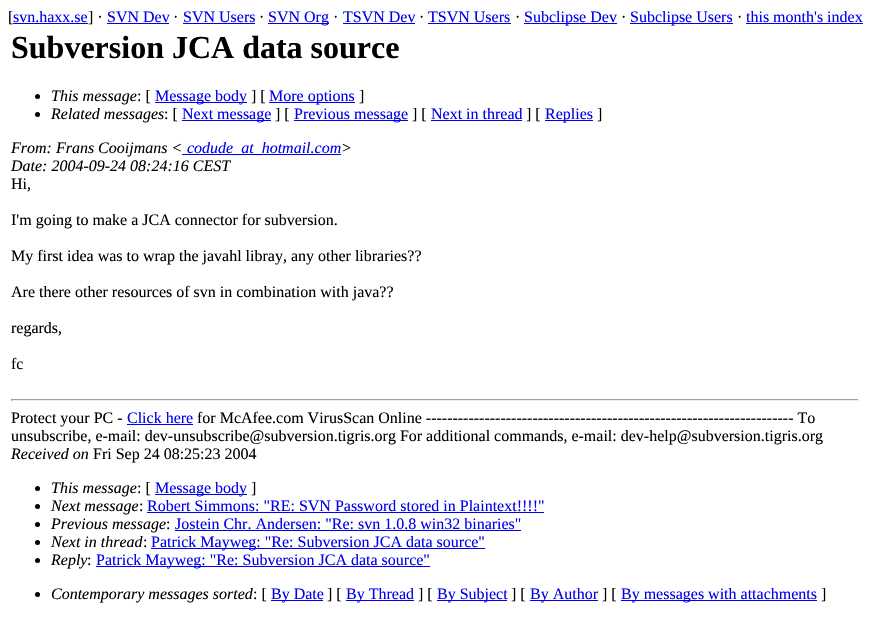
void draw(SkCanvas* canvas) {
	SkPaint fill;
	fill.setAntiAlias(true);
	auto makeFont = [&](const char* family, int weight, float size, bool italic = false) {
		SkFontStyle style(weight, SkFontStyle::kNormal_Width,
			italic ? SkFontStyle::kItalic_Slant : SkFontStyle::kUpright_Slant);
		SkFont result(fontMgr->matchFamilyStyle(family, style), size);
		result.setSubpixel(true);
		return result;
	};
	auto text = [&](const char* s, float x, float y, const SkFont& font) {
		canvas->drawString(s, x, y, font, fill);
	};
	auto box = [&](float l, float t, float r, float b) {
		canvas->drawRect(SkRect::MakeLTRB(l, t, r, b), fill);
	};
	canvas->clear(0xFFFFFFFF);
	fill.setColor(0xFF0000EE);
	box(13, 23, 88, 24);
	box(107, 23, 169, 24);
	box(183, 23, 255, 24);
	box(268, 23, 329, 24);
	box(343, 23, 415, 24);
	box(428, 23, 511, 24);
	box(524, 23, 617, 24);
	box(630, 23, 733, 24);
	box(746, 23, 863, 24);
	fill.setColor(0xFF000000);
	canvas->drawCircle(37.5f, 96.5f, 2.5f, fill);
	fill.setColor(0xFF0000EE);
	box(155, 102, 247, 103);
	box(269, 102, 355, 103);
	fill.setColor(0xFF000000);
	canvas->drawCircle(37.5f, 114.5f, 2.5f, fill);
	fill.setColor(0xFF0000EE);
	box(182, 120, 271, 121);
	box(294, 120, 408, 121);
	box(431, 120, 522, 121);
	box(545, 120, 593, 121);
	box(182, 154, 341, 155);
	fill.setColor(0xFF9F9F9F);
	box(11, 399, 859, 400);
	fill.setColor(0xFFEEEEEE);
	box(858, 399, 859, 401);
	box(11, 400, 859, 401);
	fill.setColor(0xFF9F9F9F);
	box(11, 399, 12, 401);
	fill.setColor(0xFF0000EE);
	box(127, 424, 193, 425);
	fill.setColor(0xFF000000);
	canvas->drawCircle(37.5f, 488.5f, 2.5f, fill);
	fill.setColor(0xFF0000EE);
	box(155, 494, 247, 495);
	fill.setColor(0xFF000000);
	canvas->drawCircle(37.5f, 506.5f, 2.5f, fill);
	fill.setColor(0xFF0000EE);
	box(147, 512, 544, 513);
	fill.setColor(0xFF000000);
	canvas->drawCircle(37.5f, 524.5f, 2.5f, fill);
	fill.setColor(0xFF0000EE);
	box(175, 530, 521, 531);
	fill.setColor(0xFF000000);
	canvas->drawCircle(37.5f, 542.5f, 2.5f, fill);
	fill.setColor(0xFF0000EE);
	box(151, 548, 485, 549);
	fill.setColor(0xFF000000);
	canvas->drawCircle(37.5f, 560.5f, 2.5f, fill);
	fill.setColor(0xFF0000EE);
	box(96, 566, 430, 567);
	fill.setColor(0xFF000000);
	canvas->drawCircle(37.5f, 594.5f, 2.5f, fill);
	fill.setColor(0xFF0000EE);
	box(271, 600, 323, 601);
	box(346, 600, 414, 601);
	box(437, 600, 507, 601);
	box(530, 600, 598, 601);
	box(621, 600, 817, 601);
	auto font1 = makeFont("Liberation Serif", 400, 16);
	fill.setColor(0xFF000000);
	text("[", 8, 22, font1);
	fill.setColor(0xFF0000EE);
	text("svn.haxx.se", 13, 22, font1);
	fill.setColor(0xFF000000);
	text("] ·", 88, 22, font1);
	fill.setColor(0xFF0000EE);
	text("SVN Dev", 107, 22, font1);
	fill.setColor(0xFF000000);
	text("·", 173, 22, font1);
	fill.setColor(0xFF0000EE);
	text("SVN Users", 183, 22, font1);
	fill.setColor(0xFF000000);
	text("·", 259, 22, font1);
	fill.setColor(0xFF0000EE);
	text("SVN Org", 268, 22, font1);
	fill.setColor(0xFF000000);
	text("·", 333, 22, font1);
	fill.setColor(0xFF0000EE);
	text("TSVN Dev", 343, 22, font1);
	fill.setColor(0xFF000000);
	text("·", 419, 22, font1);
	fill.setColor(0xFF0000EE);
	text("TSVN Users", 428, 22, font1);
	fill.setColor(0xFF000000);
	text("·", 515, 22, font1);
	fill.setColor(0xFF0000EE);
	text("Subclipse Dev", 524, 22, font1);
	fill.setColor(0xFF000000);
	text("·", 621, 22, font1);
	fill.setColor(0xFF0000EE);
	text("Subclipse Users", 630, 22, font1);
	fill.setColor(0xFF000000);
	text("·", 737, 22, font1);
	fill.setColor(0xFF0000EE);
	text("this month's index", 746, 22, font1);
	auto font2 = makeFont("Liberation Serif", 700, 32);
	fill.setColor(0xFF000000);
	text("Subversion JCA data source", 11, 58, font2);
	auto font3 = makeFont("Liberation Serif", 400, 16, true);
	text("This message", 51, 101, font3);
	text(": [", 137, 101, font1);
	fill.setColor(0xFF0000EE);
	text("Message body", 155, 101, font1);
	fill.setColor(0xFF000000);
	text("] [", 251, 101, font1);
	fill.setColor(0xFF0000EE);
	text("More options", 269, 101, font1);
	fill.setColor(0xFF000000);
	text("]", 359, 101, font1);
	text("Related messages", 51, 119, font3);
	text(": [", 164, 119, font1);
	fill.setColor(0xFF0000EE);
	text("Next message", 182, 119, font1);
	fill.setColor(0xFF000000);
	text("] [", 275, 119, font1);
	fill.setColor(0xFF0000EE);
	text("Previous message", 294, 119, font1);
	fill.setColor(0xFF000000);
	text("] [", 412, 119, font1);
	fill.setColor(0xFF0000EE);
	text("Next in thread", 431, 119, font1);
	fill.setColor(0xFF000000);
	text("] [", 526, 119, font1);
	fill.setColor(0xFF0000EE);
	text("Replies", 545, 119, font1);
	fill.setColor(0xFF000000);
	text("]", 597, 119, font1);
	text("From: Frans Cooijmans <", 11, 153, font3);
	fill.setColor(0xFF0000EE);
	text("codude_at_hotmail.com", 187, 153, font3);
	fill.setColor(0xFF000000);
	text(">", 341, 153, font3);
	text("Date: 2004-09-24 08:24:16 CEST", 11, 171, font3);
	text("Hi,", 11, 189, font1);
	text("I'm going to make a JCA connector for subversion.", 11, 225, font1);
	text("My first idea was to wrap the javahl libray, any other libraries?\077", 11, 261, font1);
	text("Are there other resources of svn in combination with java?\077", 11, 297, font1);
	text("regards,", 11, 333, font1);
	text("fc", 11, 369, font1);
	text("Protect your PC -", 11, 423, font1);
	fill.setColor(0xFF0000EE);
	text("Click here", 127, 423, font1);
	fill.setColor(0xFF000000);
	text("for McAfee.com VirusScan Online --------------------------------------------------------------------- To", 197, 423, font1);
	text("unsubscribe, e-mail: dev-unsubscribe@subversion.tigris.org For additional commands, e-mail: dev-help@subversion.tigris.org", 11, 441, font1);
	text("Received on", 11, 459, font3);
	text("Fri Sep 24 08:25:23 2004", 93, 459, font1);
	text("This message", 51, 493, font3);
	text(": [", 137, 493, font1);
	fill.setColor(0xFF0000EE);
	text("Message body", 155, 493, font1);
	fill.setColor(0xFF000000);
	text("]", 251, 493, font1);
	text("Next message", 51, 511, font3);
	text(":", 139, 511, font1);
	fill.setColor(0xFF0000EE);
	text("Robert Simmons: \"RE: SVN Password stored in Plaintext!!!!\"", 147, 511, font1);
	fill.setColor(0xFF000000);
	text("Previous message", 51, 529, font3);
	text(":", 166, 529, font1);
	fill.setColor(0xFF0000EE);
	text("Jostein Chr. Andersen: \"Re: svn 1.0.8 win32 binaries\"", 175, 529, font1);
	fill.setColor(0xFF000000);
	text("Next in thread", 51, 547, font3);
	text(":", 143, 547, font1);
	fill.setColor(0xFF0000EE);
	text("Patrick Mayweg: \"Re: Subversion JCA data source\"", 151, 547, font1);
	fill.setColor(0xFF000000);
	text("Reply", 51, 565, font3);
	text(":", 87, 565, font1);
	fill.setColor(0xFF0000EE);
	text("Patrick Mayweg: \"Re: Subversion JCA data source\"", 96, 565, font1);
	fill.setColor(0xFF000000);
	text("Contemporary messages sorted", 51, 599, font3);
	text(": [", 253, 599, font1);
	fill.setColor(0xFF0000EE);
	text("By Date", 271, 599, font1);
	fill.setColor(0xFF000000);
	text("] [", 327, 599, font1);
	fill.setColor(0xFF0000EE);
	text("By Thread", 346, 599, font1);
	fill.setColor(0xFF000000);
	text("] [", 418, 599, font1);
	fill.setColor(0xFF0000EE);
	text("By Subject", 437, 599, font1);
	fill.setColor(0xFF000000);
	text("] [", 511, 599, font1);
	fill.setColor(0xFF0000EE);
	text("By Author", 530, 599, font1);
	fill.setColor(0xFF000000);
	text("] [", 602, 599, font1);
	fill.setColor(0xFF0000EE);
	text("By messages with attachments", 621, 599, font1);
	fill.setColor(0xFF000000);
	text("]", 821, 599, font1);
}
